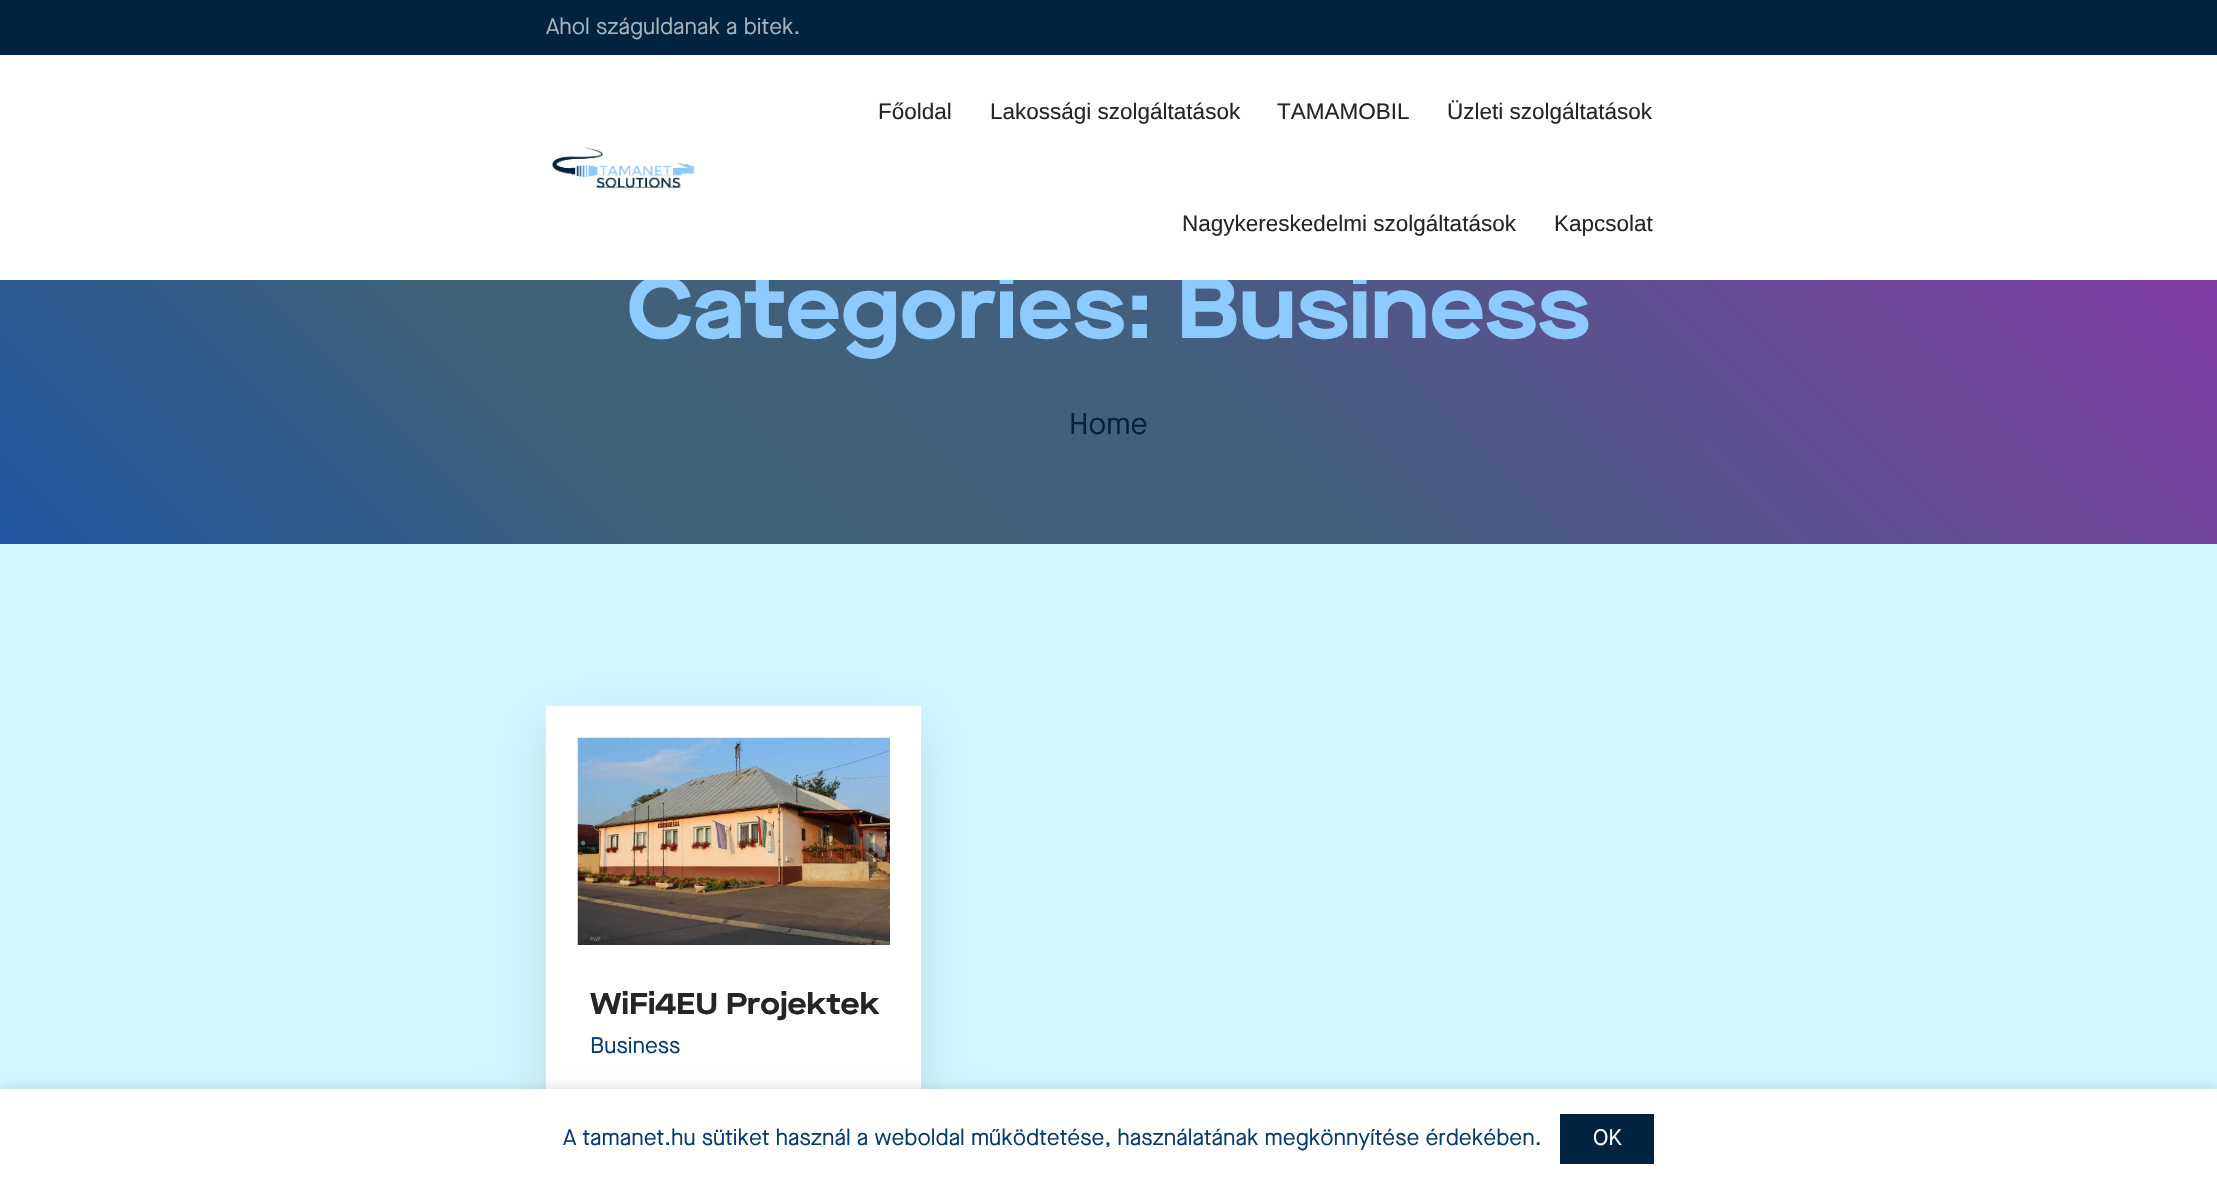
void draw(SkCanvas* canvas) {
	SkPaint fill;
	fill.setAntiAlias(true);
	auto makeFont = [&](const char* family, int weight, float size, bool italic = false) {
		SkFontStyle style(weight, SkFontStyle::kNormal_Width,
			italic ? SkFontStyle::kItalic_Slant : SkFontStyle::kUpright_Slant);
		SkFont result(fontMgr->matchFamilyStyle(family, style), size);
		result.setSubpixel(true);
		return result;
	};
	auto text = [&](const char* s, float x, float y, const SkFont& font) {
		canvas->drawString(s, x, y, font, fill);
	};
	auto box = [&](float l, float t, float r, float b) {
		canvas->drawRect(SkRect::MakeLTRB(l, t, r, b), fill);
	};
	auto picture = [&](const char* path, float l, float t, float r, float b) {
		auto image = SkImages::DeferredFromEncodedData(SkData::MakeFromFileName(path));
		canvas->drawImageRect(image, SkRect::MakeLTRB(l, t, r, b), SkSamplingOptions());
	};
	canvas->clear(0xFFD3F8FF);
	fill.setColor(0xFF01233F);
	box(0, 0, 2217, 55);
	{
		const SkColor colors[] = {0xFF2154A1, 0xFF406279, 0xFF425F7E, 0xFF9233B2};
		const float stops[] = {0, 0.25f, 0.5f, 1};
		const SkPoint ends[] = {{418, 962}, {1799, -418}};
		fill.setShader(SkGradientShader::MakeLinear(ends, colors, stops, 4, SkTileMode::kClamp));
		fill.setAlpha(255);
	}
	box(0, 280, 2217, 544);
	fill.setShader(nullptr);
	fill.setColor(0x1A000000);
	fill.setMaskFilter(SkMaskFilter::MakeBlur(kNormal_SkBlurStyle, 25));
	canvas->drawRect(SkRect::MakeLTRB(546, 724, 921, 1129), fill);
	fill.setMaskFilter(nullptr);
	fill.setColor(0xFFFFFFFF);
	box(546, 706, 921, 1089);
	picture("image1.png", 577, 737, 890, 945);
	fill.setColor(0x26000000);
	fill.setMaskFilter(SkMaskFilter::MakeBlur(kNormal_SkBlurStyle, 6));
	canvas->drawRect(SkRect::MakeLTRB(0, 1089, 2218, 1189), fill);
	fill.setMaskFilter(nullptr);
	fill.setColor(0xFFFFFFFF);
	box(0, 1089, 2217, 1188);
	fill.setColor(0xFF01233F);
	box(1560, 1114, 1654, 1164);
	auto font1 = makeFont("Maison Neue", 400, 22.5f);
	fill.setColor(0xFFA6B2BC);
	text("Ahol száguldanak a bitek.", 546, 34, font1);
	auto font2 = makeFont("Maison Neue", 700, 87.5f);
	fill.setColor(0xFF8DCAFF);
	text("Categories: Business", 627, 338, font2);
	fill.setColor(0xFFFFFFFF);
	box(0, 55, 2217, 280);
	auto font3 = makeFont("Liberation Sans", 400, 22.5f);
	fill.setColor(0xFF252525);
	text("Kapcsolat", 1554, 231, font3);
	text("Nagykereskedelmi szolgáltatások", 1182, 231, font3);
	text("Üzleti szolgáltatások", 1447, 119, font3);
	text("TAMAMOBIL", 1277, 119, font3);
	text("Lakossági szolgáltatások", 990, 119, font3);
	text("Főoldal", 878, 119, font3);
	picture("image0.png", 551, 147, 695, 188);
	auto font4 = makeFont("Maison Neue", 400, 30);
	fill.setColor(0xFF04213C);
	text("Home", 1069, 434, font4);
	auto font5 = makeFont("Maison Neue", 700, 30);
	fill.setColor(0xFF252525);
	text("WiFi4EU Projektek", 590, 1014, font5);
	fill.setColor(0xFF043B74);
	text("Business", 590, 1053, font1);
	text("A tamanet.hu sütiket használ a weboldal működtetése, használatának megkönnyítése érdekében.", 563, 1145, font1);
	fill.setColor(0xFFFFFFFF);
	text("OK", 1593, 1145, font1);
}
